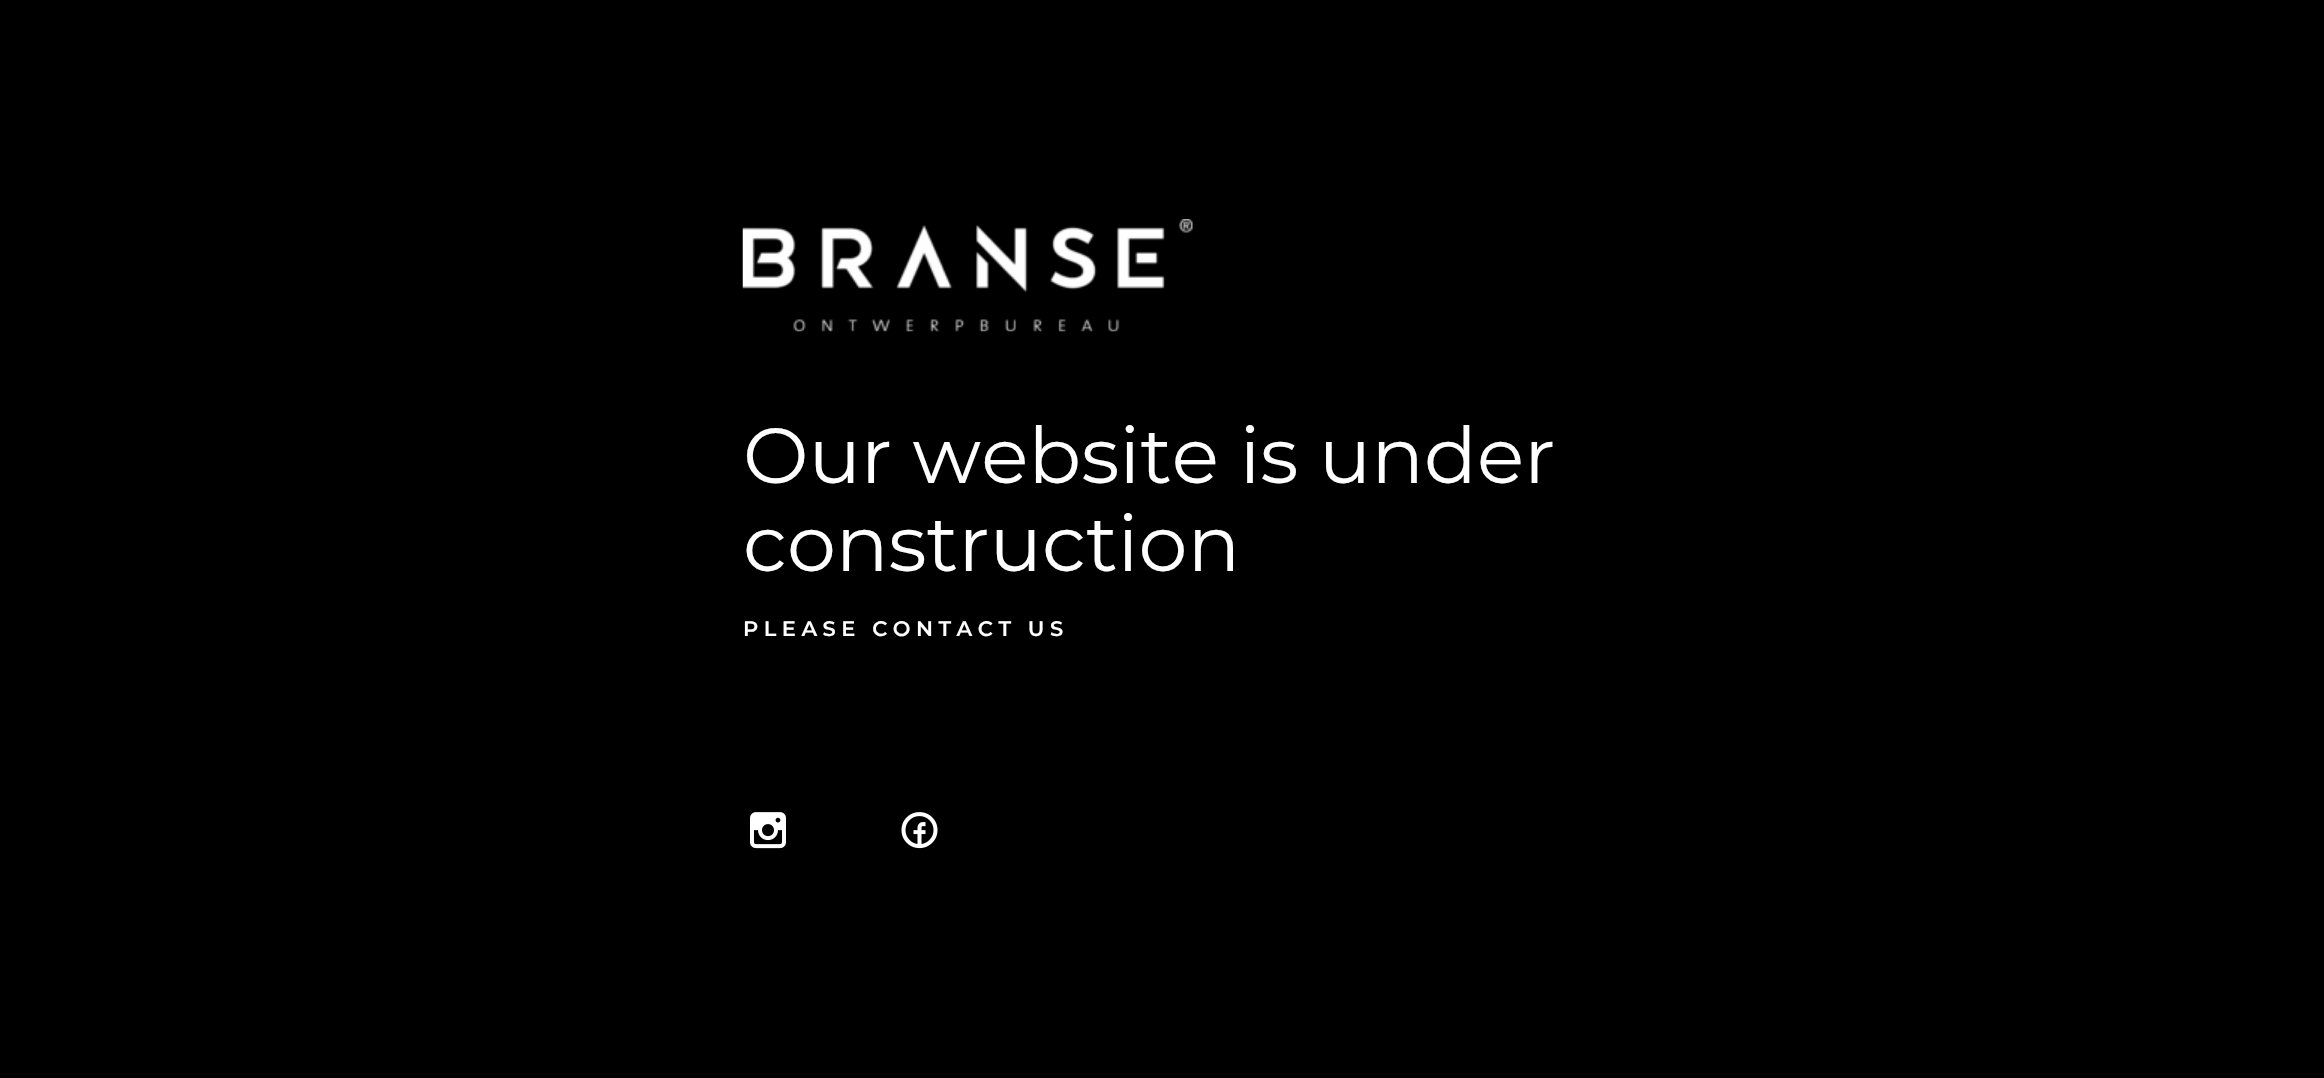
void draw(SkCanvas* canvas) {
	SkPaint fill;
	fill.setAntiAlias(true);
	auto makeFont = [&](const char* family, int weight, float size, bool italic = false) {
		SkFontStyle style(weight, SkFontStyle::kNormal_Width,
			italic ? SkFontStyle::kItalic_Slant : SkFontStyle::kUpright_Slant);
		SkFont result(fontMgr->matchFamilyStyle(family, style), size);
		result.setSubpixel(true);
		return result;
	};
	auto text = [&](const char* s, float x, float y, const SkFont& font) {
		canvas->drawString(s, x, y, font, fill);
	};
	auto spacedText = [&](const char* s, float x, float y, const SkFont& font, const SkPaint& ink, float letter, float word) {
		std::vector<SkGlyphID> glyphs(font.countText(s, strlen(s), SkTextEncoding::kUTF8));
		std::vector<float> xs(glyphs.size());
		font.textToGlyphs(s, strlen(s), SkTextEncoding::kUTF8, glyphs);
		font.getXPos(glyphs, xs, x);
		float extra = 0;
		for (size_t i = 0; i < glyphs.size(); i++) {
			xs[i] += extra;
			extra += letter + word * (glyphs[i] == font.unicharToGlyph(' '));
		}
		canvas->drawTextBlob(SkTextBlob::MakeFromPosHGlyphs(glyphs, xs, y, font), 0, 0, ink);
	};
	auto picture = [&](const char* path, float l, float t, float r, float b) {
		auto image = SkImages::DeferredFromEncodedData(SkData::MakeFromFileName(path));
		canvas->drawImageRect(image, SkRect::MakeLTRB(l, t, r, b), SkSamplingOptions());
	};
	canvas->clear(0xFF000000);
	picture("image0.png", 742, 219, 1193, 332);
	picture("image1.png", 750, 812, 786, 849);
	picture("image2.png", 901, 812, 938, 849);
	auto font1 = makeFont("Montserrat", 400, 78);
	fill.setColor(0xFFFFFFFF);
	text("Our website is under", 743, 483, font1);
	text("construction", 743, 571, font1);
	auto font2 = makeFont("Montserrat", 600, 21);
	spacedText("PLEASE CONTACT US", 743, 636, font2, fill, 5.5f, 0);
}
